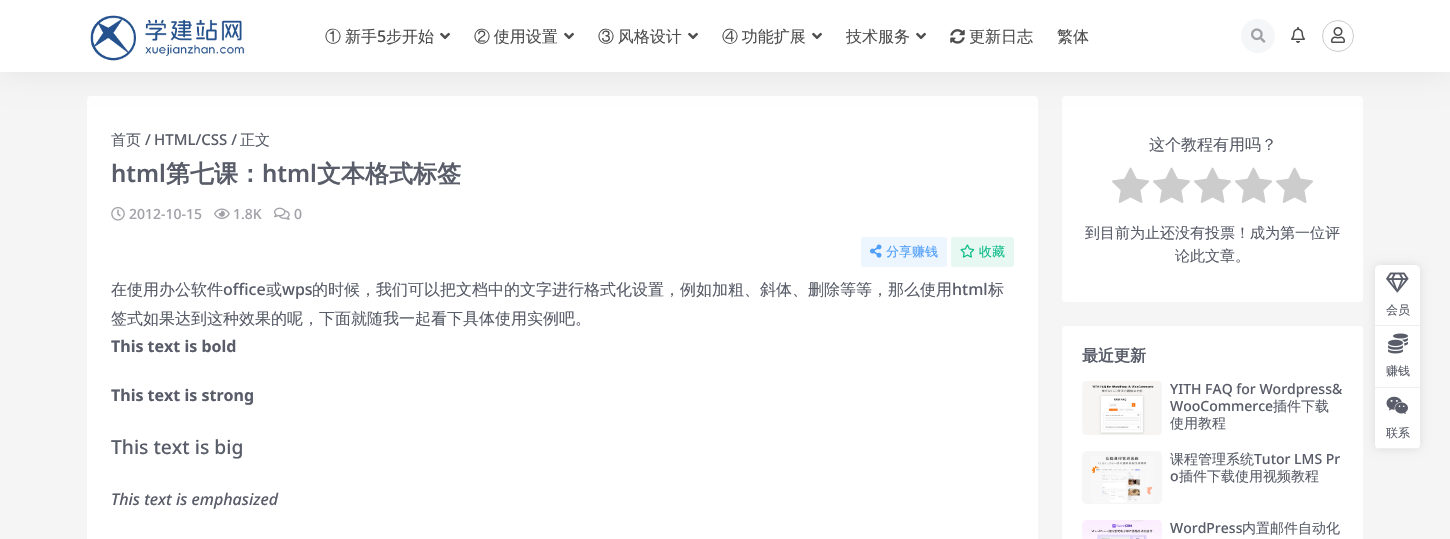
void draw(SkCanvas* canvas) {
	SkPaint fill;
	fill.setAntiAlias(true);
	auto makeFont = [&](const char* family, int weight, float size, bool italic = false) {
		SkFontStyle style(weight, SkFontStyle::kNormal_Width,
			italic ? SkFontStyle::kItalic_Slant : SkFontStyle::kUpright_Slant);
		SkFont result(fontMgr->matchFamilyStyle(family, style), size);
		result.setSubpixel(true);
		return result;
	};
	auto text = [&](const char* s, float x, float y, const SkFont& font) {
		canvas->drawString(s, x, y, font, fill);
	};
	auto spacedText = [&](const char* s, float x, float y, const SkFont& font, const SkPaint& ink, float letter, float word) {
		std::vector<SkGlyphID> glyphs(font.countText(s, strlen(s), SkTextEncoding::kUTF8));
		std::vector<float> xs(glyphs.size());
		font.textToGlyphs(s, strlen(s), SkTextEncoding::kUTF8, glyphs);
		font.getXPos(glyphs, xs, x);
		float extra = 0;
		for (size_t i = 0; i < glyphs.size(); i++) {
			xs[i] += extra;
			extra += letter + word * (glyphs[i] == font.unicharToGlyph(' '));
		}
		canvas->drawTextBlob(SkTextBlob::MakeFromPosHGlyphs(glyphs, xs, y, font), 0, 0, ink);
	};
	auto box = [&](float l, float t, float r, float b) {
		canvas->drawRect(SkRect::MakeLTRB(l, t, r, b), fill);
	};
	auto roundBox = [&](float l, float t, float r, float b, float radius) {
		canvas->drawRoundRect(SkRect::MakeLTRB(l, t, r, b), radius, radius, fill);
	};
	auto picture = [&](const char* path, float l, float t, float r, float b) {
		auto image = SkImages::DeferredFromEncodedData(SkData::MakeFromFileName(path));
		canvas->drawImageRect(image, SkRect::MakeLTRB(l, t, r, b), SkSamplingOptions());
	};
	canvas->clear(0xFFF5F5F5);
	fill.setColor(0xFFFFFFFF);
	roundBox(87, 96, 1038, 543, 4);
	roundBox(1062, 96, 1363, 302, 4);
	fill.setColor(0x12000000);
	fill.setMaskFilter(SkMaskFilter::MakeBlur(kNormal_SkBlurStyle, 15));
	canvas->drawRect(SkRect::MakeLTRB(0, 0, 1450, 72), fill);
	fill.setMaskFilter(nullptr);
	fill.setColor(0xFFFFFFFF);
	box(0, 0, 1450, 72);
	picture("image0.png", 90, 15, 245, 61);
	picture("image1.png", 440, 32, 450, 40);
	picture("image1.png", 564, 32, 574, 40);
	picture("image1.png", 688, 32, 698, 40);
	picture("image1.png", 812, 32, 822, 40);
	picture("image1.png", 916, 32, 926, 40);
	picture("image2.png", 950, 29, 965, 44);
	fill.setColor(0xFFF5F6F7);
	canvas->drawCircle(1258, 36, 17, fill);
	picture("image3.png", 1251, 28, 1266, 43);
	picture("image4.png", 1291, 27, 1305, 43);
	fill.setStyle(SkPaint::kStroke_Style);
	fill.setStrokeWidth(1);
	fill.setColor(0xFFCCCCCC);
	canvas->drawCircle(1338, 36, 15.5f, fill);
	picture("image5.png", 1331, 27, 1345, 43);
	picture("image6.png", 111, 207, 125, 221);
	picture("image7.png", 214, 208, 230, 219);
	picture("image8.png", 274, 207, 290, 220);
	fill.setStyle(SkPaint::kFill_Style);
	fill.setColor(0xFFEDF5FE);
	roundBox(861, 237, 947, 267, 3);
	picture("image9.png", 870, 244, 882, 258);
	fill.setColor(0xFFE7F8F3);
	roundBox(951, 237, 1014, 267, 3);
	picture("image10.png", 960, 244, 975, 258);
	picture("image11.png", 1112, 167, 1149, 203);
	picture("image11.png", 1153, 167, 1190, 203);
	picture("image11.png", 1194, 167, 1231, 203);
	picture("image11.png", 1235, 167, 1272, 203);
	picture("image11.png", 1276, 167, 1313, 203);
	fill.setColor(0xFFFFFFFF);
	roundBox(1062, 326, 1363, 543, 4);
	canvas->save();
	canvas->clipPath(SkPathBuilder().moveTo(1086, 381).lineTo(1158, 381).cubicTo(1160, 381, 1162, 383, 1162, 385).lineTo(1162, 431).cubicTo(1162, 433, 1160, 435, 1158, 435).lineTo(1086, 435).cubicTo(1084, 435, 1082, 433, 1082, 431).lineTo(1082, 385).cubicTo(1082, 383, 1084, 381, 1086, 381).close().detach(), true);
	fill.setColor(0xFFF6F6F6);
	canvas->drawPath(SkPathBuilder().moveTo(1087, 381).lineTo(1158, 381).cubicTo(1160, 381, 1162, 383, 1162, 385).lineTo(1162, 431).cubicTo(1162, 433, 1160, 435, 1158, 435).lineTo(1087, 435).cubicTo(1084, 435, 1082, 433, 1082, 430).lineTo(1082, 386).cubicTo(1082, 383, 1084, 381, 1087, 381).close().detach(), fill);
	canvas->restore();
	picture("image12.png", 1083, 381, 1162, 435);
	canvas->save();
	canvas->clipPath(SkPathBuilder().moveTo(1086, 451).lineTo(1158, 451).cubicTo(1160, 451, 1162, 453, 1162, 455).lineTo(1162, 500).cubicTo(1162, 502, 1160, 504, 1158, 504).lineTo(1086, 504).cubicTo(1084, 504, 1082, 502, 1082, 500).lineTo(1082, 455).cubicTo(1082, 453, 1084, 451, 1086, 451).close().detach(), true);
	canvas->drawPath(SkPathBuilder().moveTo(1087, 451).lineTo(1158, 451).cubicTo(1160, 451, 1162, 453, 1162, 455).lineTo(1162, 500).cubicTo(1162, 502, 1160, 504, 1158, 504).lineTo(1087, 504).cubicTo(1084, 504, 1082, 502, 1082, 499).lineTo(1082, 456).cubicTo(1082, 453, 1084, 451, 1087, 451).close().detach(), fill);
	canvas->restore();
	picture("image13.png", 1091, 456, 1153, 503);
	picture("image14.png", 1082, 520, 1162, 539);
	fill.setColor(0x1A000000);
	fill.setMaskFilter(SkMaskFilter::MakeBlur(kNormal_SkBlurStyle, 5));
	canvas->drawRoundRect(SkRect::MakeLTRB(1375, 265, 1420, 449), 5, 5, fill);
	fill.setMaskFilter(nullptr);
	fill.setColor(0xFFFFFFFF);
	canvas->drawPath(SkPathBuilder().moveTo(1380, 265).lineTo(1415, 265).cubicTo(1418, 265, 1420, 267, 1420, 270).lineTo(1420, 326).lineTo(1375, 326).lineTo(1375, 270).cubicTo(1375, 267, 1377, 265, 1380, 265).close().detach(), fill);
	fill.setColor(0xFFEEEEEE);
	box(1375, 325, 1420, 326);
	picture("image15.png", 1386, 272, 1409, 293);
	fill.setColor(0xFFFFFFFF);
	box(1375, 326, 1420, 387);
	fill.setColor(0xFFEEEEEE);
	box(1375, 387, 1420, 388);
	picture("image16.png", 1388, 333, 1408, 354);
	fill.setColor(0xFFFFFFFF);
	canvas->drawPath(SkPathBuilder().moveTo(1375, 388).lineTo(1420, 388).lineTo(1420, 444).cubicTo(1420, 447, 1418, 449, 1415, 449).lineTo(1380, 449).cubicTo(1377, 449, 1375, 447, 1375, 444).close().detach(), fill);
	canvas->save();
	canvas->clipPath(SkPathBuilder().moveTo(1380, 265).lineTo(1415, 265).cubicTo(1418, 265, 1420, 267, 1420, 270).lineTo(1420, 444).cubicTo(1420, 447, 1418, 449, 1415, 449).lineTo(1380, 449).cubicTo(1377, 449, 1375, 447, 1375, 444).lineTo(1375, 270).cubicTo(1375, 267, 1377, 265, 1380, 265).close().detach(), true);
	fill.setColor(0xFFEEEEEE);
	box(1375, 448, 1420, 449);
	canvas->restore();
	picture("image17.png", 1386, 396, 1408, 415);
	auto font1 = makeFont("WenQuanYi Zen Hei", 500, 16);
	fill.setColor(0xFF4D4D4D);
	text("①", 325, 42, font1);
	text("新手", 345, 42, font1);
	auto font2 = makeFont("Noto Sans", 500, 16);
	text("5", 377, 42, font2);
	text("步开始", 386, 42, font1);
	spacedText("② 使用设置", 474, 42, font1, fill, 0, -1);
	spacedText("③ 风格设计", 598, 42, font1, fill, 0, -1);
	spacedText("④ 功能扩展", 722, 42, font1, fill, 0, -1);
	text("技术服务", 846, 42, font1);
	text("更新日志", 969, 42, font1);
	text("繁体", 1057, 42, font1);
	auto font3 = makeFont("WenQuanYi Zen Hei", 500, 15);
	fill.setColor(0xFF595D69);
	text("首页", 111, 145, font3);
	auto font4 = makeFont("Noto Sans", 500, 15);
	text("/", 145, 145, font4);
	text("HTML/CSS /", 154, 145, font4);
	text("正文", 240, 145, font3);
	auto font5 = makeFont("Noto Sans", 600, 24);
	text("html", 111, 182, font5);
	auto font6 = makeFont("WenQuanYi Zen Hei", 700, 24);
	text("第七课：", 166, 182, font6);
	text("html", 262, 182, font5);
	text("文本格式标签", 317, 182, font6);
	auto font7 = makeFont("Noto Sans", 500, 14);
	fill.setColor(0xFFA1A1A8);
	text("2012-10-15", 129, 219, font7);
	text("1.8K", 233, 219, font7);
	text("0", 294, 219, font7);
	auto font8 = makeFont("WenQuanYi Zen Hei", 500, 13);
	fill.setColor(0xFF4F9EF8);
	text("分享赚钱", 886, 256, font8);
	fill.setColor(0xFF0CBC87);
	text("收藏", 979, 256, font8);
	fill.setColor(0xFF595D69);
	text("在使用办公软件", 111, 295, font1);
	text("office", 223, 295, font2);
	text("或", 266, 295, font1);
	text("wps", 282, 295, font2);
	text("的时候，我们可以把文档中的文字进行格式化设置，例如加粗、斜体、删除等等，那么使用", 312, 295, font1);
	text("html", 952, 295, font2);
	text("标", 988, 295, font1);
	text("签式如果达到这种效果的呢，下面就随我一起看下具体使用实例吧。", 111, 324, font1);
	auto font9 = makeFont("Noto Sans", 700, 16);
	text("This text is bold", 111, 352, font9);
	text("This text is strong", 111, 401, font9);
	auto font10 = makeFont("Noto Sans", 500, 19.25f);
	text("This text is big", 111, 454, font10);
	auto font11 = makeFont("Noto Sans", 500, 16, true);
	text("This text is emphasized", 111, 505, font11);
	text("这个教程有用吗？", 1149, 150, font1);
	text("到目前为止还没有投票！成为第一位评", 1085, 238, font3);
	text("论此文章。", 1175, 261, font3);
	auto font12 = makeFont("WenQuanYi Zen Hei", 700, 16);
	text("最近更新", 1082, 361, font12);
	text("YITH FAQ for Wordpress&", 1170, 394, font7);
	text("WooCommerce", 1170, 411, font7);
	auto font13 = makeFont("WenQuanYi Zen Hei", 500, 14);
	text("插件下载", 1273, 411, font13);
	text("使用教程", 1170, 428, font13);
	text("课程管理系统", 1170, 464, font13);
	text("Tutor LMS Pr", 1254, 464, font7);
	text("o", 1170, 481, font7);
	text("插件下载使用视频教程", 1179, 481, font13);
	text("WordPress", 1170, 533, font7);
	text("内置邮件自动化", 1242, 533, font13);
	auto font14 = makeFont("WenQuanYi Zen Hei", 500, 12);
	text("会员", 1386, 314, font14);
	text("赚钱", 1386, 375, font14);
	text("联系", 1386, 437, font14);
}
